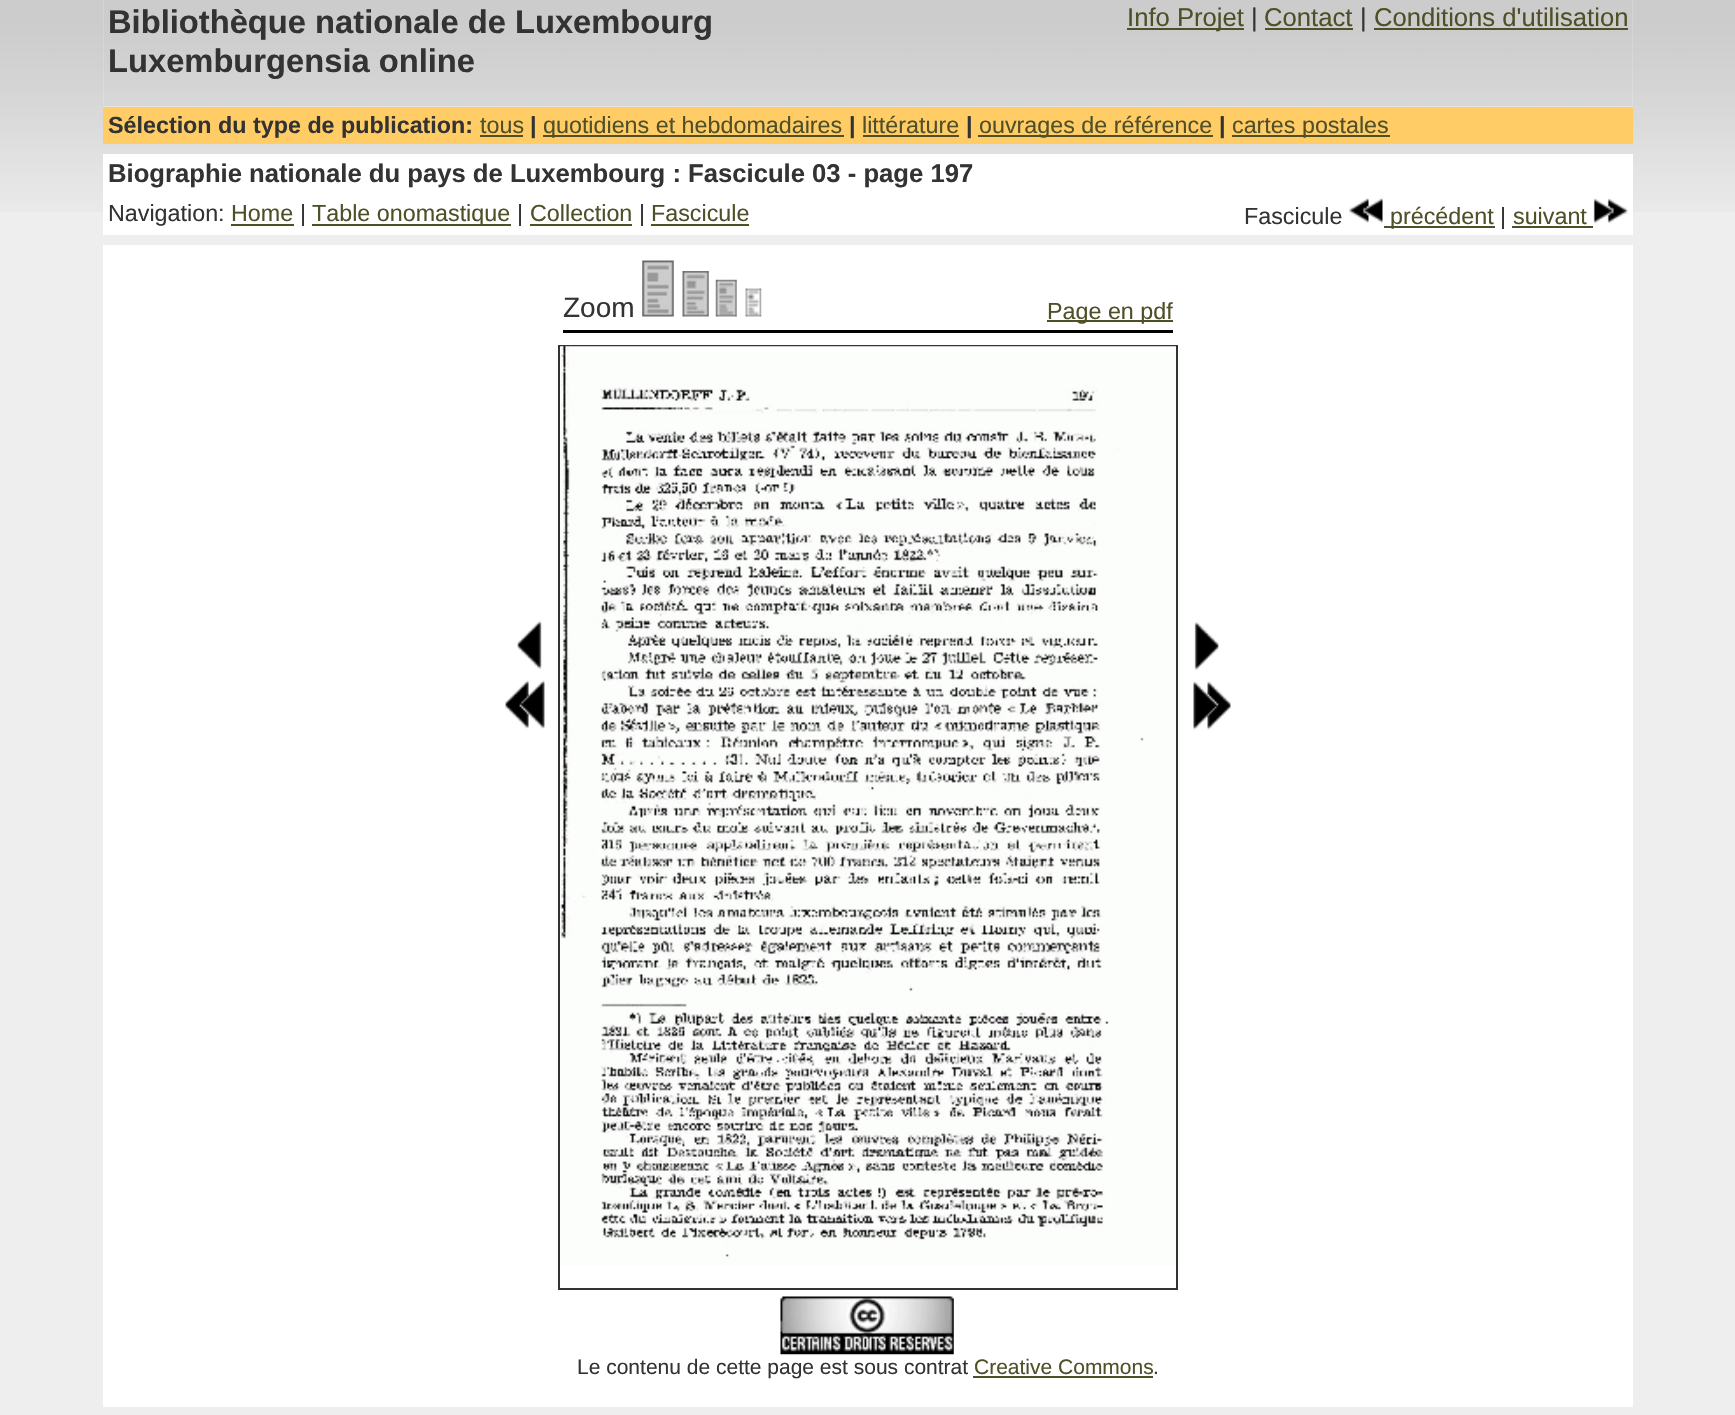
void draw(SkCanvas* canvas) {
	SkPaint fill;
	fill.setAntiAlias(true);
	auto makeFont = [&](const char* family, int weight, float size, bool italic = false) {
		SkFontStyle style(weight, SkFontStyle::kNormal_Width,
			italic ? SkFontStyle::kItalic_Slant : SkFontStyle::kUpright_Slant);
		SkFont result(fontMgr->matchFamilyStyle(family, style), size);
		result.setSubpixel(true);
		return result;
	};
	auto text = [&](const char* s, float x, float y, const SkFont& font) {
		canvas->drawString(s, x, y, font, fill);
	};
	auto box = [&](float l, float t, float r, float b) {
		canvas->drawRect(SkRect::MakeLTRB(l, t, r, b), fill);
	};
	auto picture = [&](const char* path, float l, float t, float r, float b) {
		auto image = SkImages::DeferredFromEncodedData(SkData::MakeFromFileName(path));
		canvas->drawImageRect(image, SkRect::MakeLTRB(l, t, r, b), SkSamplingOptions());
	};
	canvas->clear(0xFFEEEEEE);
	picture("image0.png", 0, 0, 1735, 212);
	fill.setColor(0xFFEEEEEE);
	box(103, 0, 1633, 107);
	picture("image1.png", 103, 0, 1633, 107);
	fill.setColor(0xFF4F4F28);
	box(1127, 28, 1244, 30);
	box(1265, 28, 1353, 30);
	box(1374, 28, 1628, 30);
	fill.setColor(0xFFFFCC66);
	box(103, 107, 1633, 144);
	fill.setColor(0xFF4F4F28);
	box(480, 135, 523, 137);
	box(543, 135, 844, 137);
	box(863, 135, 959, 137);
	box(978, 135, 1213, 137);
	box(1232, 135, 1390, 137);
	fill.setColor(0xFFFFFFFF);
	box(103, 154, 1633, 235);
	fill.setColor(0xFF4F4F28);
	box(231, 224, 294, 226);
	box(312, 224, 511, 226);
	box(530, 224, 632, 226);
	box(651, 224, 749, 226);
	picture("image2.png", 1349, 197, 1383, 223);
	box(1384, 226, 1495, 228);
	box(1512, 226, 1593, 228);
	picture("image3.png", 1593, 198, 1628, 224);
	fill.setColor(0xFFFFFFFF);
	box(103, 245, 1633, 1407);
	picture("image4.png", 642, 260, 674, 317);
	picture("image5.png", 682, 271, 709, 317);
	picture("image6.png", 715, 279, 737, 317);
	picture("image7.png", 745, 288, 762, 317);
	fill.setColor(0xFF4F4F28);
	box(1047, 320, 1173, 322);
	fill.setColor(0xFF000000);
	box(563, 330, 1173, 333);
	picture("image8.png", 517, 620, 542, 669);
	picture("image9.png", 505, 680, 545, 729);
	fill.setStyle(SkPaint::kStroke_Style);
	fill.setStrokeWidth(2);
	fill.setColor(0xFF333333);
	canvas->drawRect(SkRect::MakeLTRB(559, 346, 1177, 1289), fill);
	picture("image10.png", 560, 346, 1176, 1266);
	picture("image11.png", 1194, 622, 1219, 671);
	picture("image12.png", 1193, 681, 1231, 730);
	picture("image13.png", 780, 1296, 954, 1355);
	fill.setStyle(SkPaint::kFill_Style);
	fill.setColor(0xFF4F4F28);
	box(973, 1376, 1153, 1378);
	auto font1 = makeFont("Liberation Sans", 700, 32.7f);
	fill.setColor(0xFF333333);
	text("Bibliothèque nationale de Luxembourg", 108, 33, font1);
	text("Luxemburgensia online", 108, 72, font1);
	auto font2 = makeFont("Liberation Sans", 400, 25.65f);
	fill.setColor(0xFF4F4F28);
	text("Info Projet", 1127, 26, font2);
	fill.setColor(0xFF333333);
	text("|", 1251, 26, font2);
	fill.setColor(0xFF4F4F28);
	text("Contact", 1264, 26, font2);
	fill.setColor(0xFF333333);
	text("|", 1360, 26, font2);
	fill.setColor(0xFF4F4F28);
	text("Conditions d'utilisation", 1374, 26, font2);
	auto font3 = makeFont("Liberation Sans", 700, 23.3f);
	fill.setColor(0xFF333333);
	text("Sélection du type de publication:", 108, 133, font3);
	auto font4 = makeFont("Liberation Sans", 400, 23.3f);
	fill.setColor(0xFF4F4F28);
	text("tous", 480, 133, font4);
	fill.setColor(0xFF333333);
	text("|", 530, 133, font3);
	fill.setColor(0xFF4F4F28);
	text("quotidiens et hebdomadaires", 543, 133, font4);
	fill.setColor(0xFF333333);
	text("|", 849, 133, font3);
	fill.setColor(0xFF4F4F28);
	text("littérature", 862, 133, font4);
	fill.setColor(0xFF333333);
	text("|", 966, 133, font3);
	fill.setColor(0xFF4F4F28);
	text("ouvrages de référence", 979, 133, font4);
	fill.setColor(0xFF333333);
	text("|", 1219, 133, font3);
	fill.setColor(0xFF4F4F28);
	text("cartes postales", 1232, 133, font4);
	auto font5 = makeFont("Liberation Sans", 700, 25.65f);
	fill.setColor(0xFF333333);
	text("Biographie nationale du pays de Luxembourg : Fascicule 03 - page 197", 108, 182, font5);
	text("Navigation:", 108, 221, font4);
	fill.setColor(0xFF4F4F28);
	text("Home", 231, 221, font4);
	fill.setColor(0xFF333333);
	text("|", 300, 221, font4);
	fill.setColor(0xFF4F4F28);
	text("Table onomastique", 312, 221, font4);
	fill.setColor(0xFF333333);
	text("|", 517, 221, font4);
	fill.setColor(0xFF4F4F28);
	text("Collection", 530, 221, font4);
	fill.setColor(0xFF333333);
	text("|", 639, 221, font4);
	fill.setColor(0xFF4F4F28);
	text("Fascicule", 651, 221, font4);
	fill.setColor(0xFF333333);
	text("Fascicule", 1244, 224, font4);
	fill.setColor(0xFF4F4F28);
	text("précédent", 1390, 224, font4);
	fill.setColor(0xFF333333);
	text("|", 1500, 224, font4);
	fill.setColor(0xFF4F4F28);
	text("suivant", 1513, 224, font4);
	auto font6 = makeFont("Liberation Sans", 400, 28);
	fill.setColor(0xFF333333);
	text("Zoom", 563, 317, font6);
	fill.setColor(0xFF4F4F28);
	text("Page en pdf", 1047, 319, font4);
	auto font7 = makeFont("Liberation Sans", 400, 21);
	fill.setColor(0xFF333333);
	text("Le contenu de cette page est sous contrat", 577, 1374, font7);
	fill.setColor(0xFF4F4F28);
	text("Creative Commons", 974, 1374, font7);
	fill.setColor(0xFF333333);
	text(".", 1153, 1374, font7);
}
